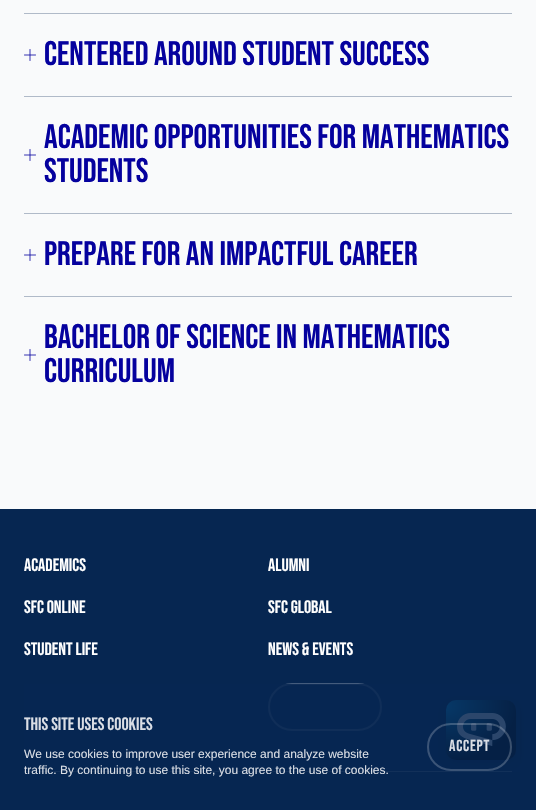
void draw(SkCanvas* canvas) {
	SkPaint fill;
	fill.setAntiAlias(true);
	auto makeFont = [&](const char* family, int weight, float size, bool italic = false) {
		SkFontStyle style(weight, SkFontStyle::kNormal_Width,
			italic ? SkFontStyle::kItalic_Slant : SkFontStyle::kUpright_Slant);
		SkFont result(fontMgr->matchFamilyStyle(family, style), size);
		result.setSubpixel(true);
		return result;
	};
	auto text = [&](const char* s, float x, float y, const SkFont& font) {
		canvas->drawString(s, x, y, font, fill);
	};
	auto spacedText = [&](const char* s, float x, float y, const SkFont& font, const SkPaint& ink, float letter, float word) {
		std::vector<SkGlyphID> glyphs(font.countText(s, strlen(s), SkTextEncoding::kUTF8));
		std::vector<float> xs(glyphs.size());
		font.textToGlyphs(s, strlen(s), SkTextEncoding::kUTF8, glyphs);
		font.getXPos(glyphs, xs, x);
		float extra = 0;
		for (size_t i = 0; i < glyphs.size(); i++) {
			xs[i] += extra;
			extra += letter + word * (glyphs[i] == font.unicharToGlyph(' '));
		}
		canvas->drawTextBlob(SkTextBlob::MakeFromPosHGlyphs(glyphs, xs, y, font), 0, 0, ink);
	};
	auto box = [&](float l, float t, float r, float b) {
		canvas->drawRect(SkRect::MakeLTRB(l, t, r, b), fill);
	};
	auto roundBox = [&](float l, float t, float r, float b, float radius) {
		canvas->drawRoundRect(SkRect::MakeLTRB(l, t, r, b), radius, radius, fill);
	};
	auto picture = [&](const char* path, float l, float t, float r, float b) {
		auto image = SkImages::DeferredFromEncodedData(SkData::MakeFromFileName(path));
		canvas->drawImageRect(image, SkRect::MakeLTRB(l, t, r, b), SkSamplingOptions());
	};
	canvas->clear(0xFFF9FAFB);
	fill.setColor(0xFFB0BAC8);
	box(24, 13, 512, 14);
	picture("image0.png", 24, 49, 36, 61);
	box(24, 96, 512, 97);
	picture("image0.png", 24, 149, 36, 161);
	box(24, 213, 512, 214);
	picture("image0.png", 24, 249, 36, 261);
	box(24, 296, 512, 297);
	picture("image0.png", 24, 349, 36, 361);
	fill.setColor(0xFF062651);
	box(0, 509, 536, 810);
	fill.setColor(0xFF516785);
	box(24, 771, 512, 772);
	fill.setStyle(SkPaint::kStroke_Style);
	fill.setStrokeWidth(2);
	fill.setColor(0xFF445C7D);
	canvas->drawRoundRect(SkRect::MakeLTRB(269, 684, 381, 730), 23, 23, fill);
	fill.setStyle(SkPaint::kFill_Style);
	fill.setColor(0x33000000);
	fill.setMaskFilter(SkMaskFilter::MakeBlur(kNormal_SkBlurStyle, 4));
	canvas->drawRoundRect(SkRect::MakeLTRB(446, 704, 516, 764), 10, 10, fill);
	fill.setMaskFilter(nullptr);
	{
		const SkColor colors[] = {0xFF059CDF, 0xFF000000};
		const float stops[] = {0, 1};
		SkMatrix m = SkMatrix::Translate(446, 706).preScale(70, 54);
		fill.setShader(SkGradientShader::MakeRadial({0, 0}, 1, colors, stops, 2, SkTileMode::kClamp, 0, &m));
		fill.setAlpha(255);
	}
	roundBox(446, 700, 516, 760, 10);
	picture("image1.png", 457, 713, 506, 746);
	fill.setShader(nullptr);
	fill.setColor(0xD9062651);
	box(24, 684, 520, 772);
	fill.setStyle(SkPaint::kStroke_Style);
	fill.setColor(0x36FFFFFF);
	canvas->drawRoundRect(SkRect::MakeLTRB(428, 724, 511, 770), 23, 23, fill);
	auto font1 = makeFont("Bebas Neue", 400, 34);
	fill.setStyle(SkPaint::kFill_Style);
	fill.setColor(0xFF05019E);
	text("CENTERED AROUND STUDENT SUCCESS", 44, 65, font1);
	text("ACADEMIC OPPORTUNITIES FOR MATHEMATICS", 44, 148, font1);
	text("STUDENTS", 44, 182, font1);
	text("PREPARE FOR AN IMPACTFUL CAREER", 44, 265, font1);
	text("BACHELOR OF SCIENCE IN MATHEMATICS", 44, 348, font1);
	text("CURRICULUM", 44, 382, font1);
	auto font2 = makeFont("Bebas Neue", 400, 18);
	fill.setColor(0xFFFFFFFF);
	text("ACADEMICS", 24, 571, font2);
	text("SFC ONLINE", 24, 613, font2);
	text("STUDENT LIFE", 24, 655, font2);
	text("ALUMNI", 268, 571, font2);
	text("SFC GLOBAL", 268, 613, font2);
	text("NEWS & EVENTS", 268, 655, font2);
	fill.setColor(0xFFDADEE5);
	text("THIS SITE USES COOKIES", 24, 730, font2);
	auto font3 = makeFont("Liberation Sans", 400, 12);
	text("We use cookies to improve user experience and analyze website", 24, 758, font3);
	text("traffic. By continuing to use this site, you agree to the use of cookies.", 24, 774, font3);
	auto font4 = makeFont("Bebas Neue", 400, 16);
	spacedText("ACCEPT", 449, 751, font4, fill, 0.75f, 0);
}
